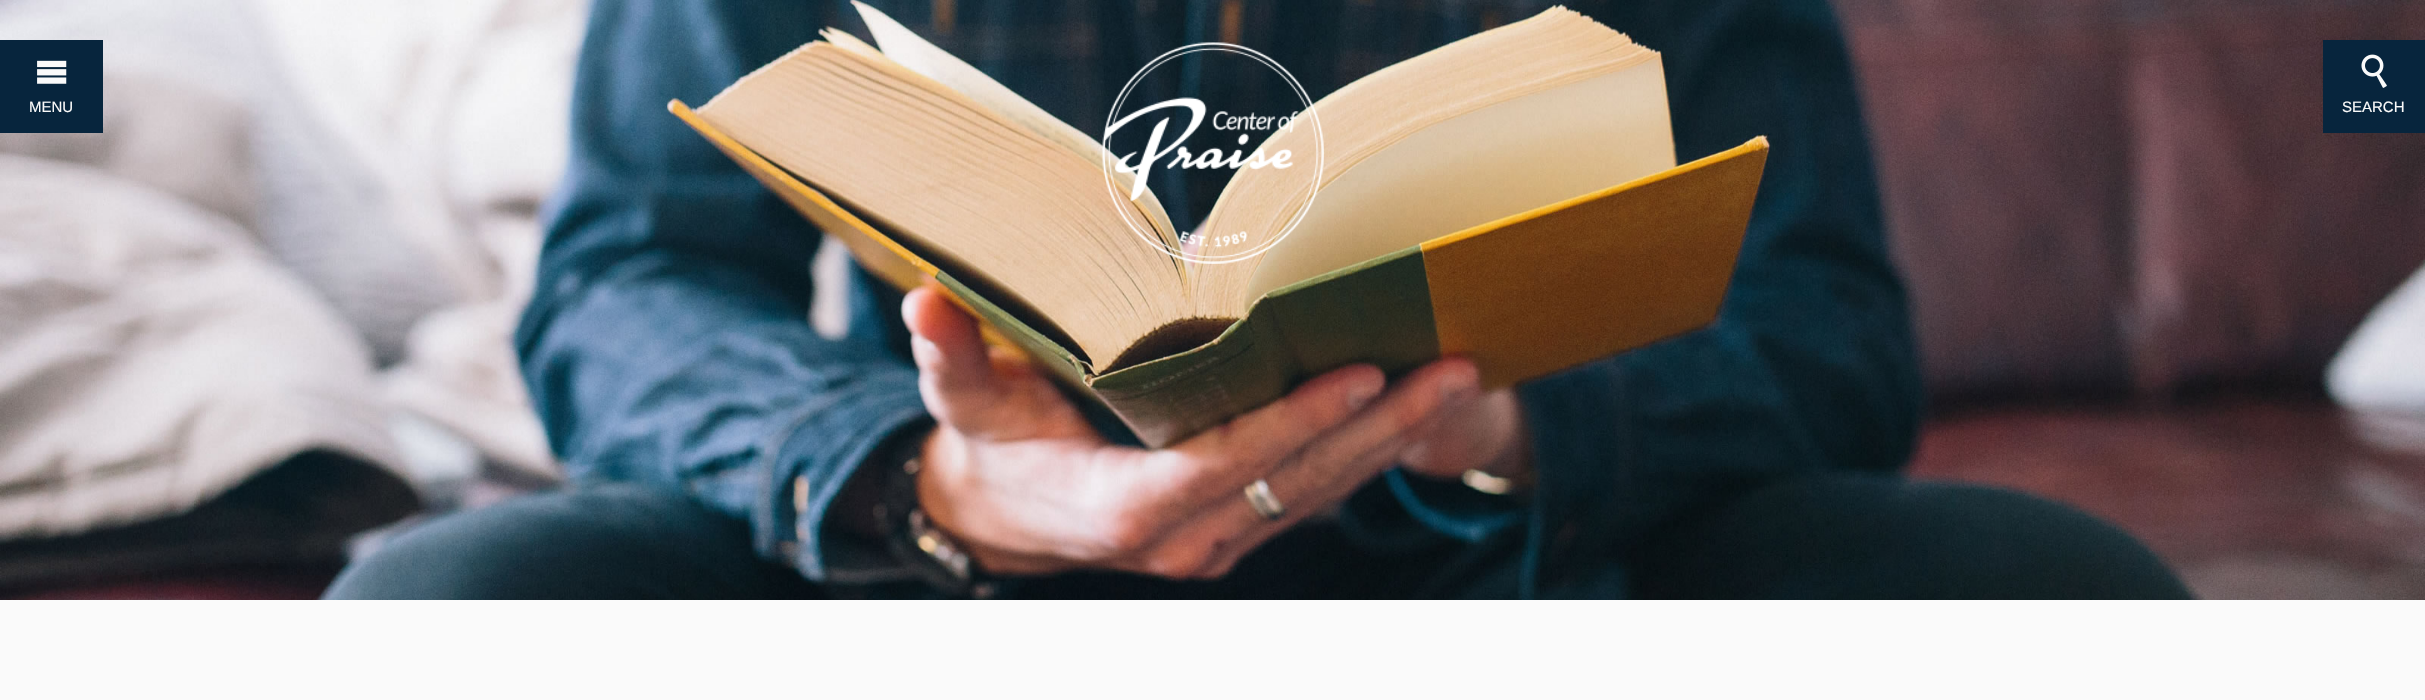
void draw(SkCanvas* canvas) {
	SkPaint fill;
	fill.setAntiAlias(true);
	auto makeFont = [&](const char* family, int weight, float size, bool italic = false) {
		SkFontStyle style(weight, SkFontStyle::kNormal_Width,
			italic ? SkFontStyle::kItalic_Slant : SkFontStyle::kUpright_Slant);
		SkFont result(fontMgr->matchFamilyStyle(family, style), size);
		result.setSubpixel(true);
		return result;
	};
	auto text = [&](const char* s, float x, float y, const SkFont& font) {
		canvas->drawString(s, x, y, font, fill);
	};
	auto box = [&](float l, float t, float r, float b) {
		canvas->drawRect(SkRect::MakeLTRB(l, t, r, b), fill);
	};
	auto picture = [&](const char* path, float l, float t, float r, float b) {
		auto image = SkImages::DeferredFromEncodedData(SkData::MakeFromFileName(path));
		canvas->drawImageRect(image, SkRect::MakeLTRB(l, t, r, b), SkSamplingOptions());
	};
	canvas->clear(0xFFFAFAFA);
	picture("image0.png", 0, 0, 2425, 600);
	picture("image1.png", 1102, 42, 1324, 264);
	fill.setColor(0xFF07253D);
	box(0, 40, 103, 133);
	picture("image2.png", 37, 60, 67, 84);
	box(2323, 40, 2425, 133);
	picture("image3.png", 2361, 54, 2387, 88);
	auto font1 = makeFont("Liberation Sans", 400, 15);
	fill.setColor(0xFFFAFAFA);
	text("MENU", 29, 112, font1);
	text("SEARCH", 2342, 112, font1);
}
